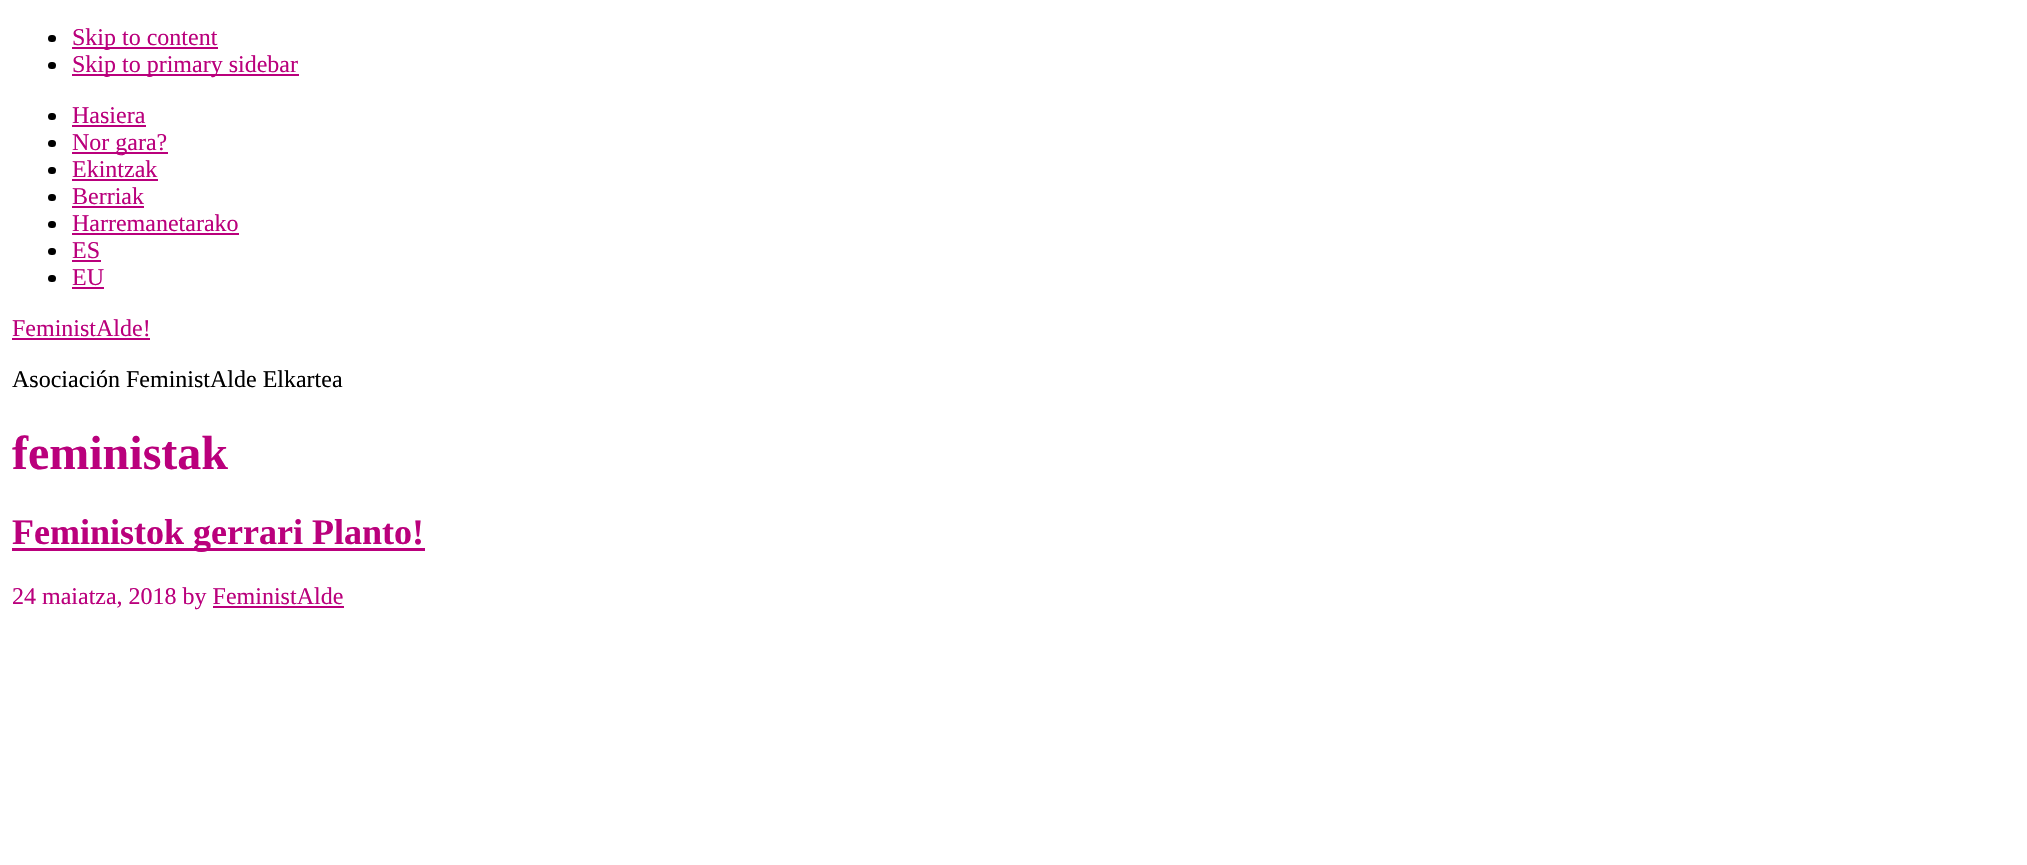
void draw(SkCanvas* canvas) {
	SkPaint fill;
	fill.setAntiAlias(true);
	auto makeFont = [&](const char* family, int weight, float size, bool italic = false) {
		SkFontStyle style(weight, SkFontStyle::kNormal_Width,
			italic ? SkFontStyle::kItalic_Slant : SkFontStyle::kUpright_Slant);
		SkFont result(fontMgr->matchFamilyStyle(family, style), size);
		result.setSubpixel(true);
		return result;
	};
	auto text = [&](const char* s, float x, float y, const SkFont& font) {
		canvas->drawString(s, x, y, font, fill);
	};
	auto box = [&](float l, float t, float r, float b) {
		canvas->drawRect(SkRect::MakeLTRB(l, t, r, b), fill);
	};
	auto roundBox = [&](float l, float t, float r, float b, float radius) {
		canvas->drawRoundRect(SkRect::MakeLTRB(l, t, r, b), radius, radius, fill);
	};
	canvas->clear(0xFFFFFFFF);
	fill.setColor(0xFF000000);
	roundBox(48, 35, 56, 42, 3.5f);
	fill.setColor(0xFFBA007C);
	box(72, 47, 218, 49);
	fill.setColor(0xFF000000);
	roundBox(48, 62, 56, 69, 3.5f);
	fill.setColor(0xFFBA007C);
	box(72, 74, 299, 76);
	fill.setColor(0xFF000000);
	roundBox(48, 113, 56, 120, 3.5f);
	fill.setColor(0xFFBA007C);
	box(72, 125, 146, 127);
	fill.setColor(0xFF000000);
	roundBox(48, 140, 56, 147, 3.5f);
	fill.setColor(0xFFBA007C);
	box(72, 152, 168, 154);
	fill.setColor(0xFF000000);
	roundBox(48, 167, 56, 174, 3.5f);
	fill.setColor(0xFFBA007C);
	box(72, 179, 158, 181);
	fill.setColor(0xFF000000);
	roundBox(48, 194, 56, 201, 3.5f);
	fill.setColor(0xFFBA007C);
	box(72, 206, 144, 208);
	fill.setColor(0xFF000000);
	roundBox(48, 221, 56, 228, 3.5f);
	fill.setColor(0xFFBA007C);
	box(72, 233, 239, 235);
	fill.setColor(0xFF000000);
	roundBox(48, 248, 56, 255, 3.5f);
	fill.setColor(0xFFBA007C);
	box(72, 260, 101, 262);
	fill.setColor(0xFF000000);
	roundBox(48, 275, 56, 282, 3.5f);
	fill.setColor(0xFFBA007C);
	box(72, 287, 104, 289);
	box(12, 338, 150, 340);
	box(12, 548, 425, 551);
	box(213, 606, 344, 608);
	auto font1 = makeFont("Liberation Serif", 400, 24);
	text("Skip to content", 72, 45, font1);
	text("Skip to primary sidebar", 72, 72, font1);
	text("Hasiera", 72, 123, font1);
	text("Nor gara?", 72, 150, font1);
	text("Ekintzak", 72, 177, font1);
	text("Berriak", 72, 204, font1);
	text("Harremanetarako", 72, 231, font1);
	text("ES", 72, 258, font1);
	text("EU", 72, 285, font1);
	text("FeministAlde!", 12, 336, font1);
	fill.setColor(0xFF000000);
	text("Asociación FeministAlde Elkartea", 12, 387, font1);
	auto font2 = makeFont("Liberation Serif", 700, 48);
	fill.setColor(0xFFBA007C);
	text("feministak", 12, 469, font2);
	auto font3 = makeFont("Liberation Serif", 700, 36);
	text("Feministok gerrari Planto!", 12, 544, font3);
	text("24 maiatza, 2018 by FeministAlde", 12, 604, font1);
}
